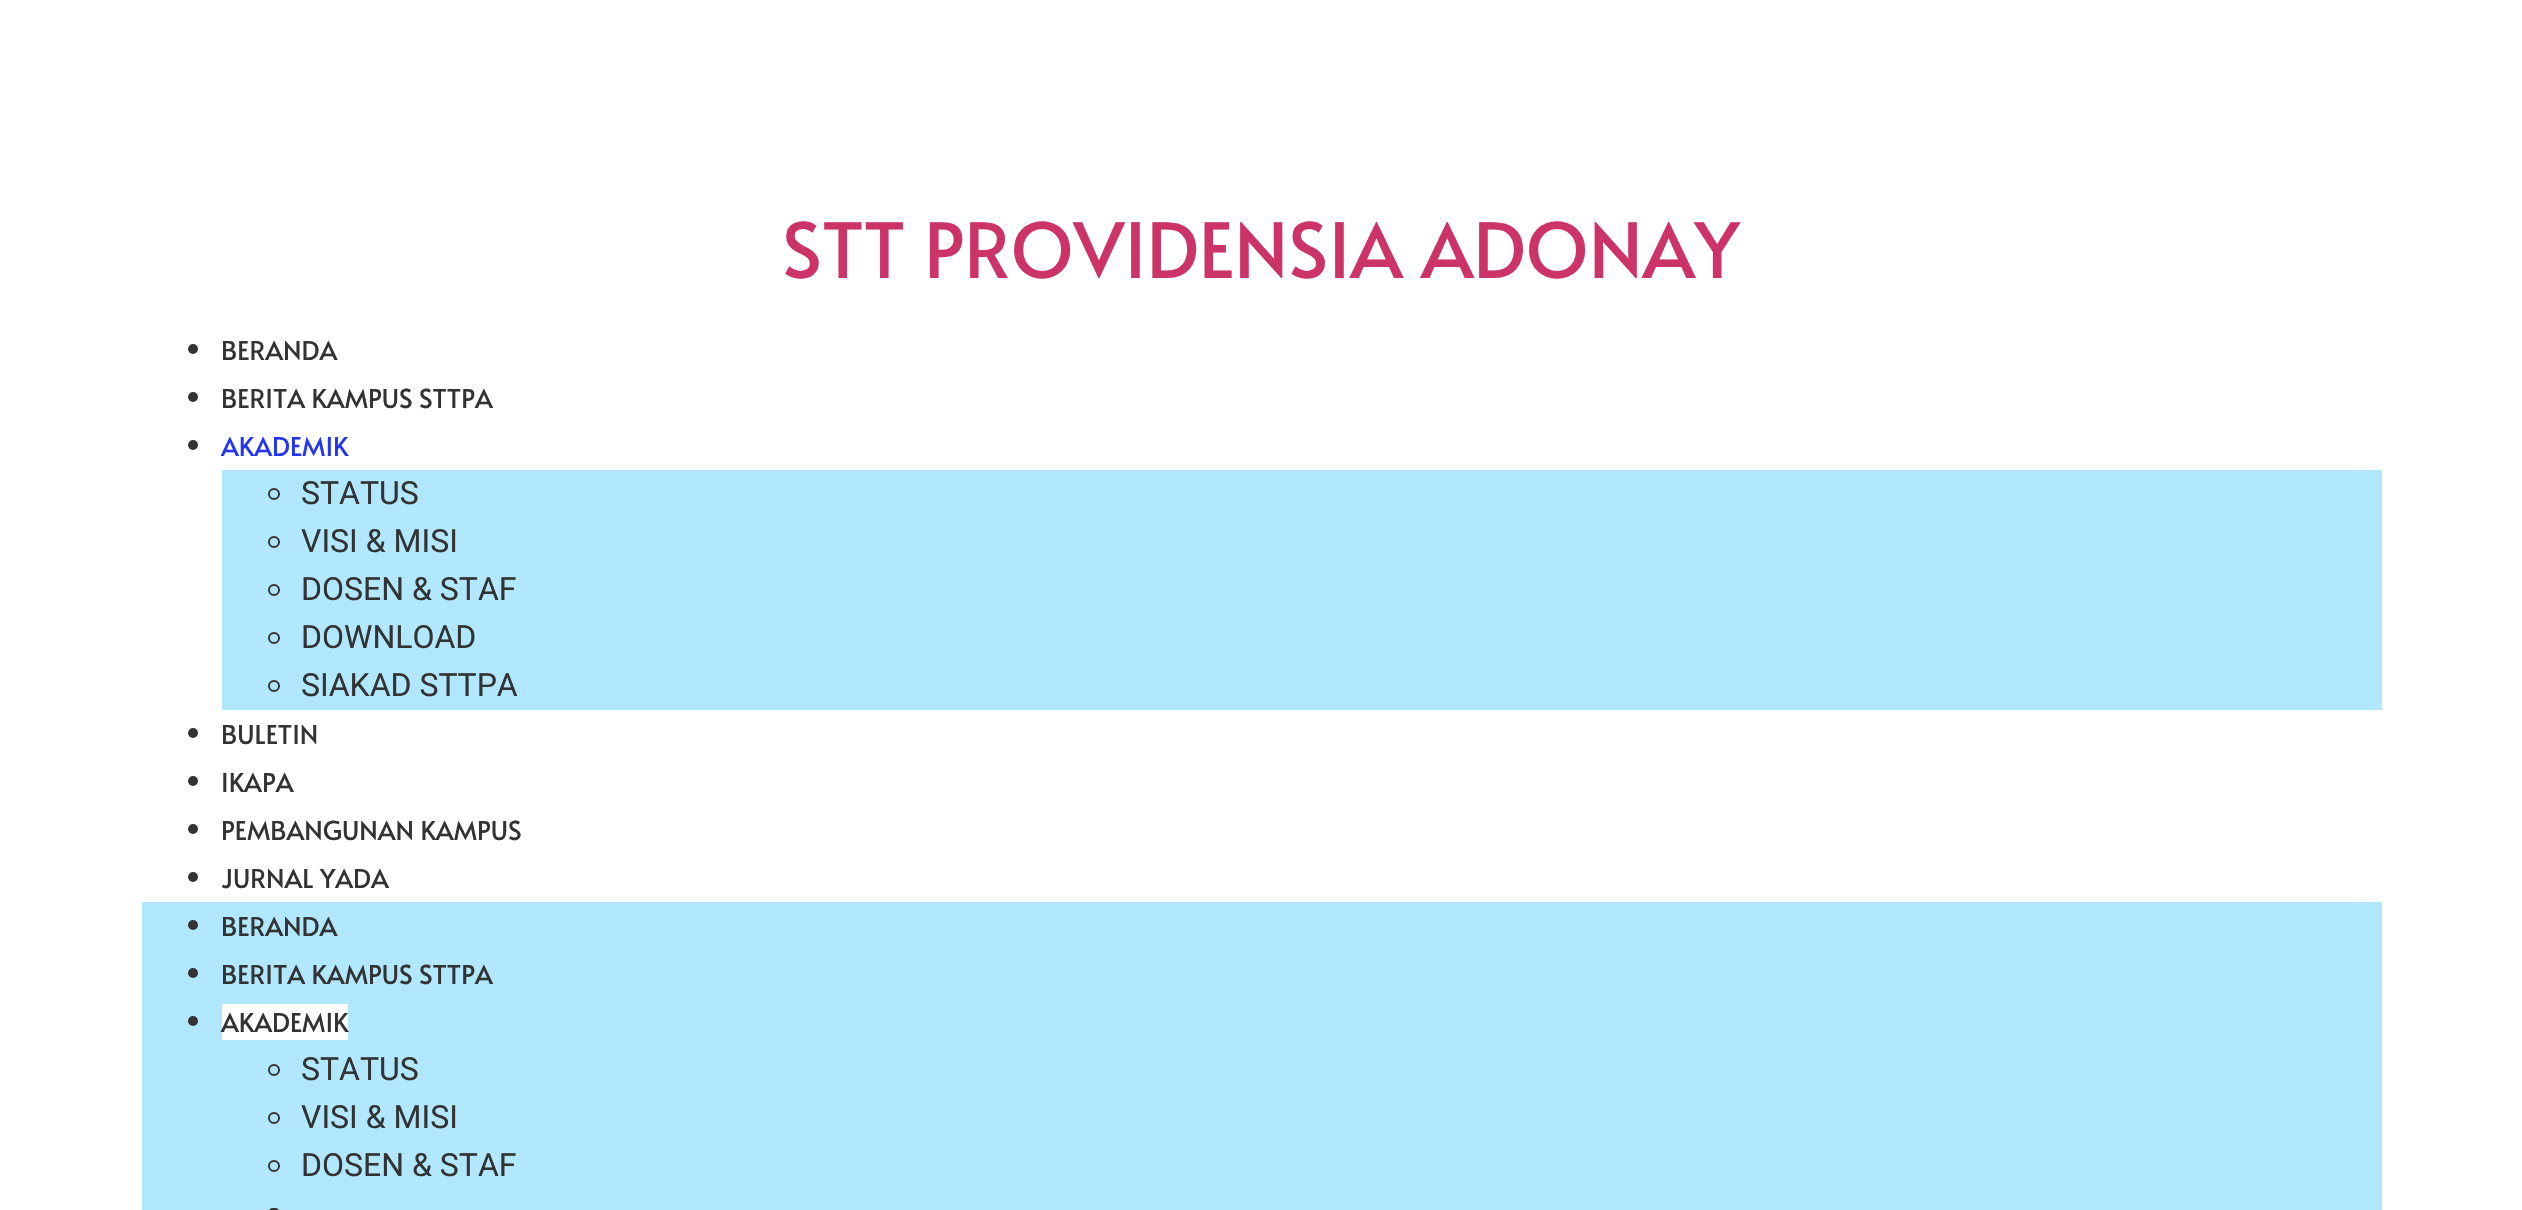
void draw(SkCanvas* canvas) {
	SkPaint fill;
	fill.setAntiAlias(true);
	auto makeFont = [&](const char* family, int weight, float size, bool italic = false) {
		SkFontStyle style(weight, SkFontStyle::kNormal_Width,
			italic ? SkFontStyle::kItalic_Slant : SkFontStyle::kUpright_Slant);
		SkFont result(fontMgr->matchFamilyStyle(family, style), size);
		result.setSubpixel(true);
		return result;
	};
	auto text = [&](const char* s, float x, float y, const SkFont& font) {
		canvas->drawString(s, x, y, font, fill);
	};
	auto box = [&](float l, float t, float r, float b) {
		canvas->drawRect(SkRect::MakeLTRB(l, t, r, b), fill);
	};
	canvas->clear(0xFFFFFFFF);
	fill.setColor(0xFF333333);
	canvas->drawCircle(193, 349, 5, fill);
	canvas->drawCircle(193, 397, 5, fill);
	canvas->drawCircle(193, 445, 5, fill);
	fill.setColor(0xFFB1E8FF);
	box(222, 470, 2382, 710);
	fill.setStyle(SkPaint::kStroke_Style);
	fill.setStrokeWidth(2);
	fill.setColor(0xFF333333);
	canvas->drawCircle(274, 494, 5, fill);
	canvas->drawCircle(274, 542, 5, fill);
	canvas->drawCircle(274, 590, 5, fill);
	canvas->drawCircle(274, 638, 5, fill);
	canvas->drawCircle(274, 686, 5, fill);
	fill.setStyle(SkPaint::kFill_Style);
	canvas->drawCircle(193, 733, 5, fill);
	canvas->drawCircle(193, 781, 5, fill);
	canvas->drawCircle(193, 829, 5, fill);
	canvas->drawCircle(193, 877, 5, fill);
	fill.setColor(0xFFB1E8FF);
	box(142, 902, 2382, 1210);
	fill.setColor(0xFF333333);
	canvas->drawCircle(193, 925, 5, fill);
	canvas->drawCircle(193, 973, 5, fill);
	canvas->drawCircle(193, 1021, 5, fill);
	fill.setColor(0xFFFFFFFF);
	box(222, 1004, 348, 1040);
	fill.setStyle(SkPaint::kStroke_Style);
	fill.setColor(0xFF333333);
	canvas->drawCircle(274, 1070, 5, fill);
	canvas->drawCircle(274, 1118, 5, fill);
	canvas->drawCircle(274, 1166, 5, fill);
	canvas->drawRoundRect(SkRect::MakeLTRB(269, 1209, 279, 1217), 5, 5, fill);
	auto font1 = makeFont("Alata", 400, 76);
	fill.setStyle(SkPaint::kFill_Style);
	fill.setColor(0xFFCC3366);
	text("STT PROVIDENSIA ADONAY", 782, 278, font1);
	auto font2 = makeFont("Alata", 400, 26);
	fill.setColor(0xFF333333);
	text("BERANDA", 221, 360, font2);
	text("BERITA KAMPUS STTPA", 221, 408, font2);
	fill.setColor(0xFF2536F3);
	text("AKADEMIK", 221, 456, font2);
	auto font3 = makeFont("Roboto", 400, 32);
	fill.setColor(0xFF333333);
	text("STATUS", 301, 504, font3);
	text("VISI & MISI", 301, 552, font3);
	text("DOSEN & STAF", 301, 600, font3);
	text("DOWNLOAD", 301, 648, font3);
	text("SIAKAD STTPA", 301, 696, font3);
	text("BULETIN", 221, 744, font2);
	text("IKAPA", 221, 792, font2);
	text("PEMBANGUNAN KAMPUS", 221, 840, font2);
	text("JURNAL YADA", 221, 888, font2);
	text("BERANDA", 221, 936, font2);
	text("BERITA KAMPUS STTPA", 221, 984, font2);
	text("AKADEMIK", 221, 1032, font2);
	text("STATUS", 301, 1080, font3);
	text("VISI & MISI", 301, 1128, font3);
	text("DOSEN & STAF", 301, 1176, font3);
}
